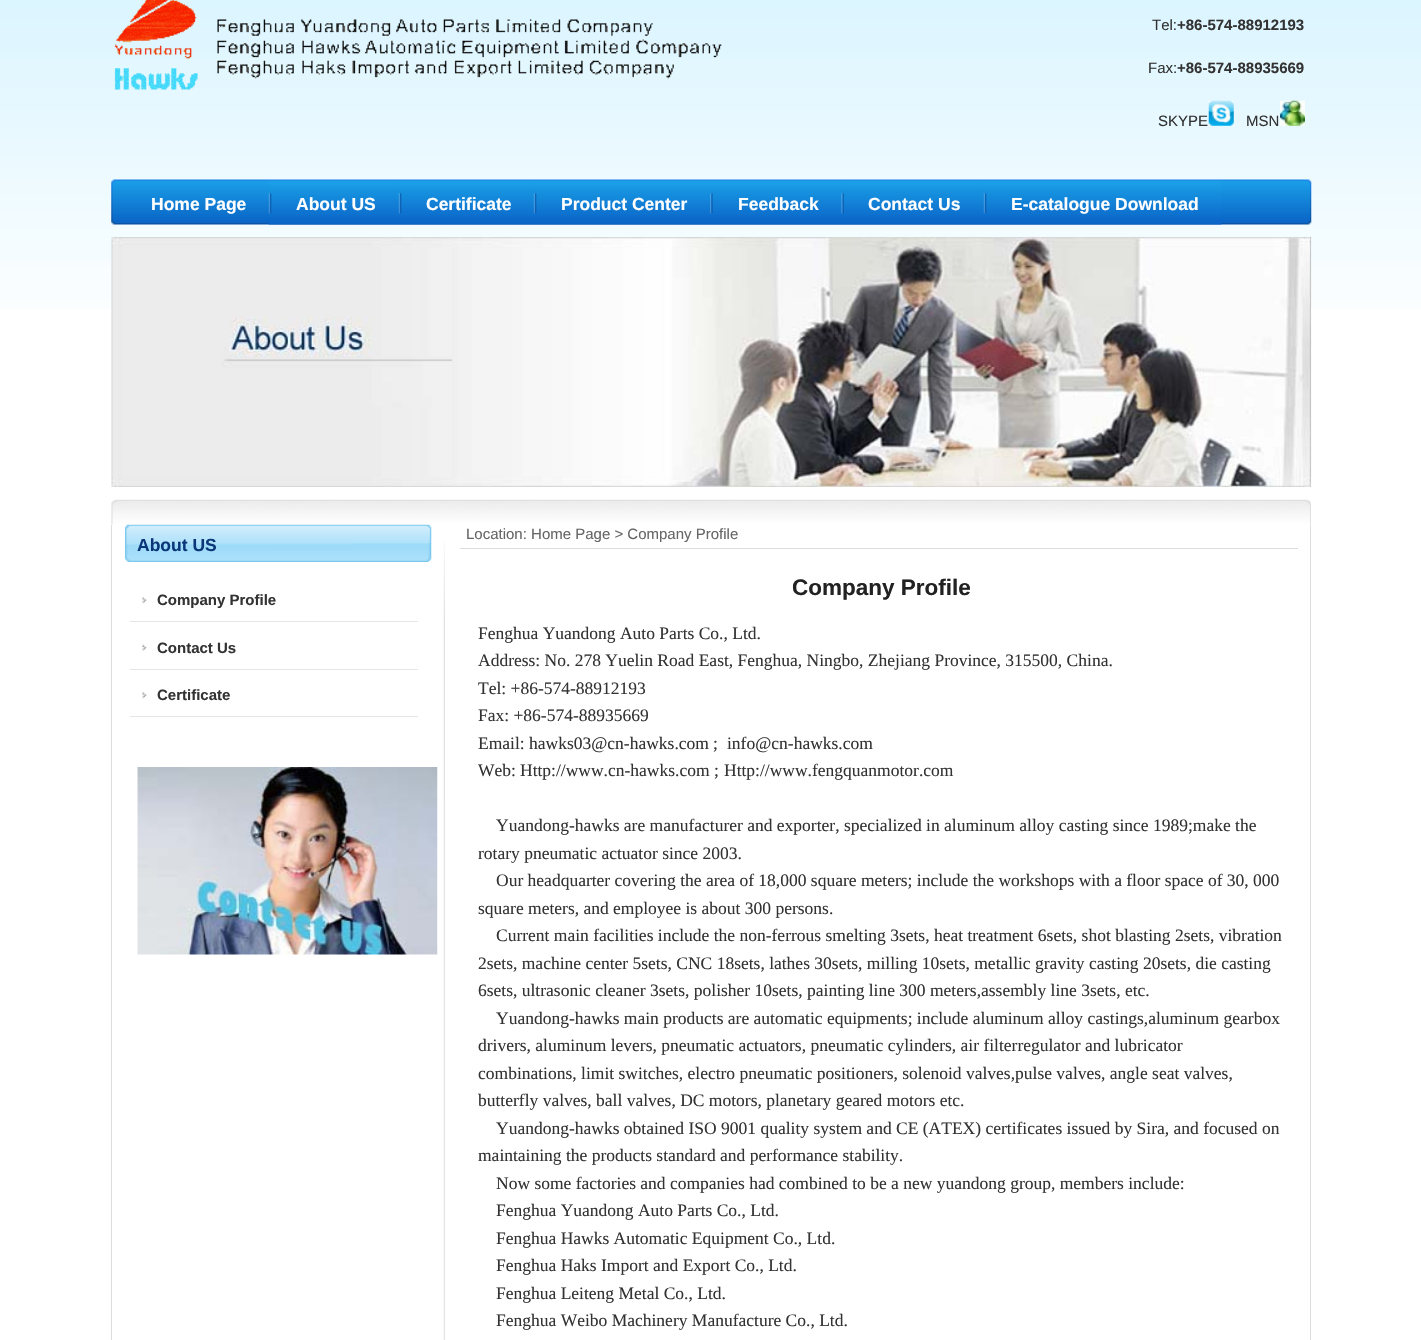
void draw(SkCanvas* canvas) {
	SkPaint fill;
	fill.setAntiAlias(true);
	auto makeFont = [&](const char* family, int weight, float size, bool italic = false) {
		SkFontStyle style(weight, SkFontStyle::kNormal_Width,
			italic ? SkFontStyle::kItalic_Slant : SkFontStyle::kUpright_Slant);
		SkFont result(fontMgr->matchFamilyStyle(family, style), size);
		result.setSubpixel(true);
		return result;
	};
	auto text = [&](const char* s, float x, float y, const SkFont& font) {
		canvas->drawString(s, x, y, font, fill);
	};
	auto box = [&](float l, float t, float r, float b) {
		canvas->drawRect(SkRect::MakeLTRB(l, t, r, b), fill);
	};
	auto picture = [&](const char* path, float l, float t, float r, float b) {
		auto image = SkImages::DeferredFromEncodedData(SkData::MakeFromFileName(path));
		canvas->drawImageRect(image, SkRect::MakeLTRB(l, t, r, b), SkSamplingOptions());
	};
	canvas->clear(0xFFFFFFFF);
	picture("image0.png", 0, 0, 1421, 309);
	picture("image1.png", 114, 0, 722, 90);
	picture("image2.png", 1208, 100, 1234, 126);
	picture("image3.png", 1280, 100, 1305, 126);
	picture("image4.png", 111, 179, 1312, 225);
	picture("image5.png", 268, 180, 399, 225);
	picture("image6.png", 398, 180, 534, 225);
	picture("image7.png", 533, 180, 710, 225);
	picture("image8.png", 710, 180, 842, 225);
	picture("image9.png", 841, 180, 984, 225);
	picture("image10.png", 983, 180, 1222, 225);
	picture("image11.png", 111, 237, 1312, 487);
	picture("image12.png", 111, 499, 1311, 525);
	picture("image13.png", 443, 541, 445, 1340);
	fill.setColor(0xFFDDDDDD);
	box(1310, 525, 1311, 1340);
	box(111, 525, 112, 1340);
	picture("image14.png", 125, 524, 432, 562);
	picture("image15.png", 142, 597, 147, 604);
	fill.setColor(0xFFE6E6E6);
	box(130, 621, 418, 622);
	picture("image16.png", 142, 644, 147, 651);
	box(130, 669, 418, 670);
	picture("image15.png", 142, 692, 147, 699);
	box(130, 716, 418, 717);
	picture("image17.png", 137, 767, 438, 955);
	fill.setColor(0xFFDDDDDD);
	box(460, 548, 1298, 549);
	auto font1 = makeFont("Liberation Sans", 400, 15);
	fill.setColor(0xFF333333);
	text("Tel:", 1152, 30, font1);
	auto font2 = makeFont("Liberation Sans", 700, 15);
	text("+86-574-88912193", 1177, 30, font2);
	text("Fax:", 1148, 73, font1);
	text("+86-574-88935669", 1177, 73, font2);
	text("SKYPE", 1158, 126, font1);
	text("MSN", 1246, 126, font1);
	auto font3 = makeFont("Liberation Sans", 700, 17.5f);
	fill.setColor(0xFFFFFFFF);
	text("Home Page", 151, 210, font3);
	text("About US", 296, 210, font3);
	text("Certificate", 426, 210, font3);
	text("Product Center", 561, 210, font3);
	text("Feedback", 738, 210, font3);
	text("Contact Us", 868, 210, font3);
	text("E-catalogue Download", 1011, 210, font3);
	fill.setColor(0xFF0B3779);
	text("About US", 137, 551, font3);
	fill.setColor(0xFF333333);
	text("Company Profile", 157, 605, font2);
	text("Contact Us", 157, 653, font2);
	text("Certificate", 157, 700, font2);
	fill.setColor(0xFF666666);
	text("Location: Home Page > Company Profile", 466, 539, font1);
	auto font4 = makeFont("Liberation Sans", 700, 22.5f);
	fill.setColor(0xFF222222);
	text("Company Profile", 792, 595, font4);
	auto font5 = makeFont("Liberation Serif", 400, 17.5f);
	fill.setColor(0xFF333333);
	text("Fenghua Yuandong Auto Parts Co., Ltd.", 478, 639, font5);
	text("Address: No. 278 Yuelin Road East, Fenghua, Ningbo, Zhejiang Province, 315500, China.", 478, 666, font5);
	text("Tel: +86-574-88912193", 478, 694, font5);
	text("Fax: +86-574-88935669", 478, 721, font5);
	text("Email:", 478, 749, font5);
	text("hawks03@cn-hawks.com", 529, 749, font5);
	text(";", 713, 749, font5);
	text("info@cn-hawks.com", 727, 749, font5);
	text("Web:", 478, 776, font5);
	text("Http://www.cn-hawks.com", 520, 776, font5);
	text(";", 714, 776, font5);
	text("Http://www.fengquanmotor.com", 724, 776, font5);
	text("Yuandong-hawks are manufacturer and exporter, specialized in aluminum alloy casting since 1989;make the", 496, 831, font5);
	text("rotary pneumatic actuator since 2003.", 478, 859, font5);
	text("Our headquarter covering the area of 18,000 square meters; include the workshops with a floor space of 30, 000", 496, 886, font5);
	text("square meters, and employee is about 300 persons.", 478, 914, font5);
	text("Current main facilities include the non-ferrous smelting 3sets, heat treatment 6sets, shot blasting 2sets, vibration", 496, 941, font5);
	text("2sets, machine center 5sets, CNC 18sets, lathes 30sets, milling 10sets, metallic gravity casting 20sets, die casting", 478, 969, font5);
	text("6sets, ultrasonic cleaner 3sets, polisher 10sets, painting line 300 meters,assembly line 3sets, etc.", 478, 996, font5);
	text("Yuandong-hawks main products are automatic equipments; include aluminum alloy castings,aluminum gearbox", 496, 1024, font5);
	text("drivers, aluminum levers, pneumatic actuators, pneumatic cylinders, air filterregulator and lubricator", 478, 1051, font5);
	text("combinations, limit switches, electro pneumatic positioners, solenoid valves,pulse valves, angle seat valves,", 478, 1079, font5);
	text("butterfly valves, ball valves, DC motors, planetary geared motors etc.", 478, 1106, font5);
	text("Yuandong-hawks obtained ISO 9001 quality system and CE (ATEX) certificates issued by Sira, and focused on", 496, 1134, font5);
	text("maintaining the products standard and performance stability.", 478, 1161, font5);
	text("Now some factories and companies had combined to be a new yuandong group, members include:", 496, 1189, font5);
	text("Fenghua Yuandong Auto Parts Co., Ltd.", 496, 1216, font5);
	text("Fenghua Hawks Automatic Equipment Co., Ltd.", 496, 1244, font5);
	text("Fenghua Haks Import and Export Co., Ltd.", 496, 1271, font5);
	text("Fenghua Leiteng Metal Co., Ltd.", 496, 1299, font5);
	text("Fenghua Weibo Machinery Manufacture Co., Ltd.", 496, 1326, font5);
}
